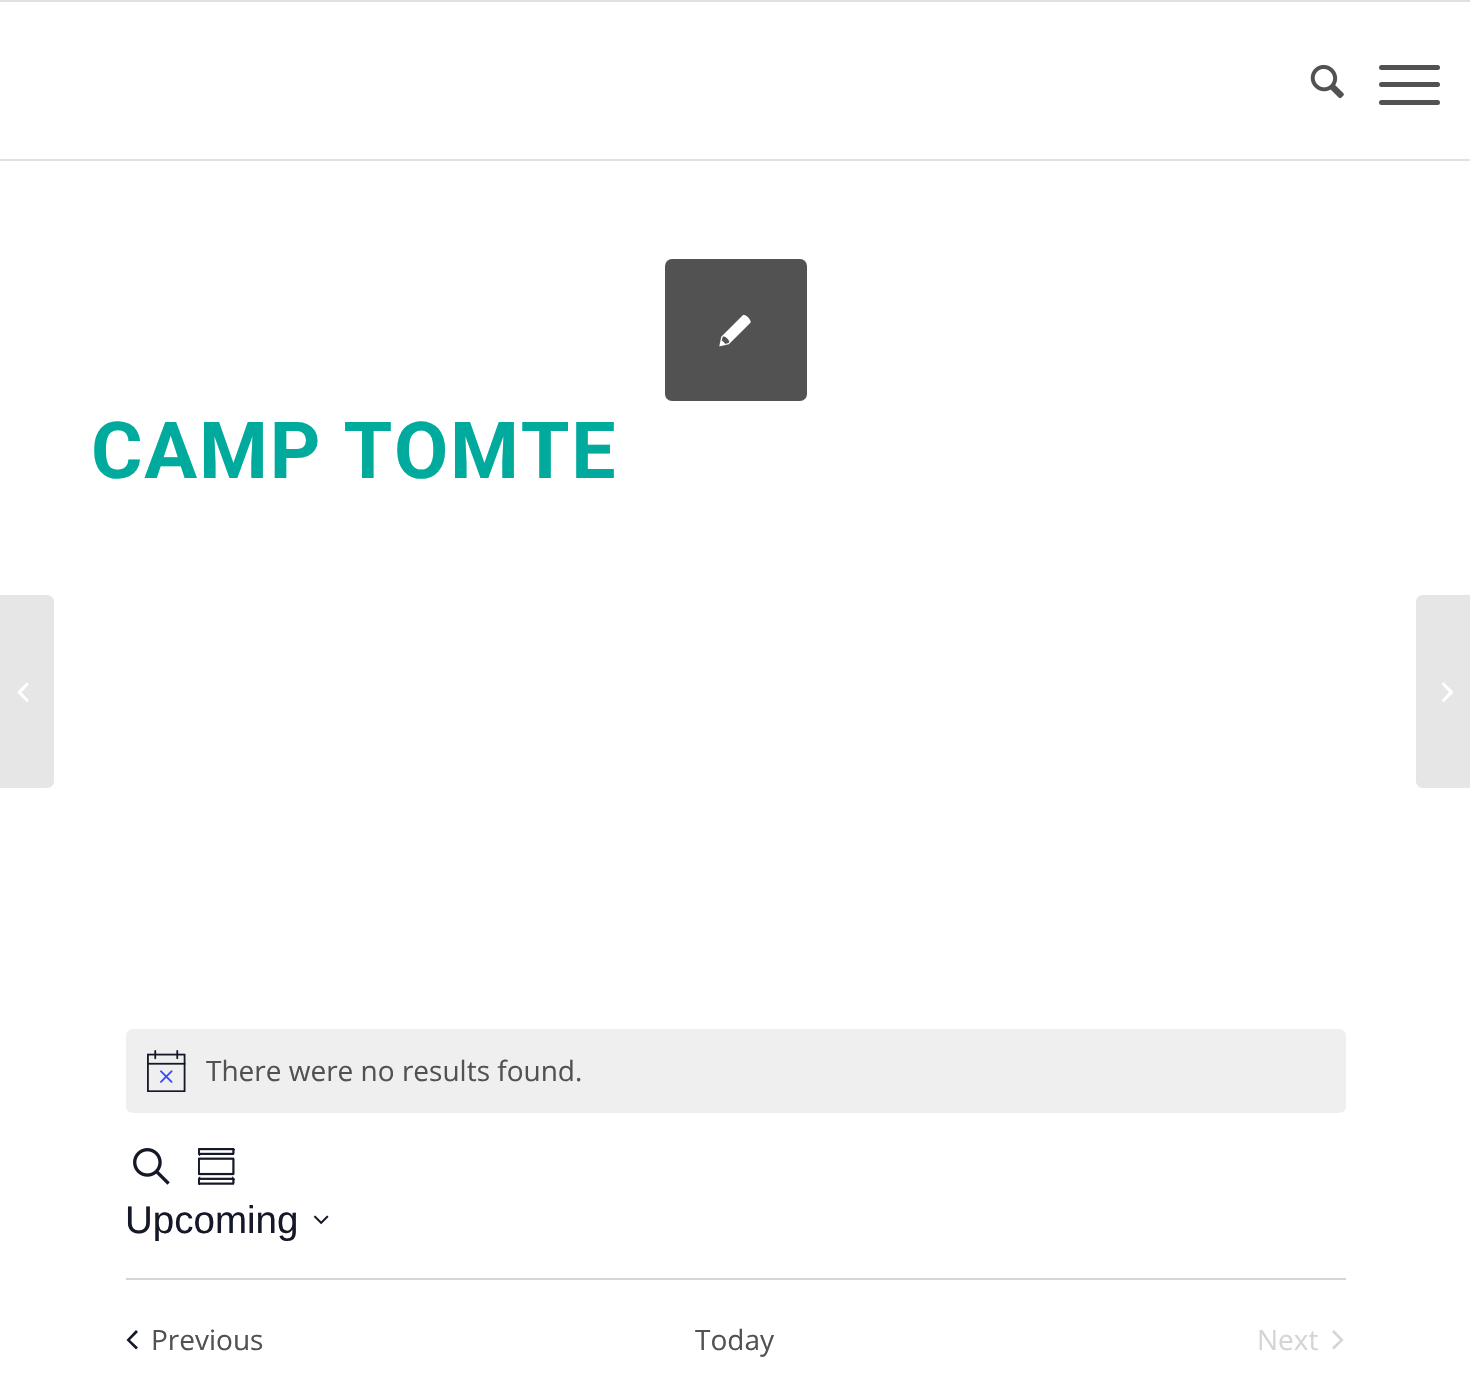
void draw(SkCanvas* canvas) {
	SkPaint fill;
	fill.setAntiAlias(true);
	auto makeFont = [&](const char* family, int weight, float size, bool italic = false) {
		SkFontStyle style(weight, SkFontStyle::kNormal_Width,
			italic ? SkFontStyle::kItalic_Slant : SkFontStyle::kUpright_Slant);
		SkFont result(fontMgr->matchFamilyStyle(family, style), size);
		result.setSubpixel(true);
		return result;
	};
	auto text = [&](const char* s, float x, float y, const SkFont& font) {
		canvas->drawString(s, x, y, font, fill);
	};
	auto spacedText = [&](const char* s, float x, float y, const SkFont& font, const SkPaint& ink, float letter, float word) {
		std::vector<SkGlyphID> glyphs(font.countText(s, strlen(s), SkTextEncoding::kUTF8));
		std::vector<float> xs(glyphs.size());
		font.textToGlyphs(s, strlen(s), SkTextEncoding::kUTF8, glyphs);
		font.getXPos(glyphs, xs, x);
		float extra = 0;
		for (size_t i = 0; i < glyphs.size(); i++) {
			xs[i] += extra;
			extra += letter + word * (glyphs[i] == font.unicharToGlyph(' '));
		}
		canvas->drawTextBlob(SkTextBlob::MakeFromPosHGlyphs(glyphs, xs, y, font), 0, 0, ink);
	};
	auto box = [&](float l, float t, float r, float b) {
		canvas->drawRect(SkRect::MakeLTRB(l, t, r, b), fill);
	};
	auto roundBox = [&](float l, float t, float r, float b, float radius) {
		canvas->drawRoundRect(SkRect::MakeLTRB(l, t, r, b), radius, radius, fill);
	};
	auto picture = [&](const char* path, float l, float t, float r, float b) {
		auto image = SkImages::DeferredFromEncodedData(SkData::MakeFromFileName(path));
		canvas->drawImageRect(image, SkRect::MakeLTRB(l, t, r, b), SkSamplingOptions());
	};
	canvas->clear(0xFFFFFFFF);
	fill.setColor(0xFFE1E1E1);
	box(0, 0, 1470, 2);
	box(0, 159, 1470, 161);
	picture("image0.png", 1310, 64, 1344, 99);
	fill.setColor(0xFF525252);
	roundBox(1379, 82, 1440, 87, 2.5f);
	roundBox(1379, 65, 1440, 70, 2.5f);
	roundBox(1379, 100, 1440, 105, 2.5f);
	fill.setColor(0xFFE6E6E6);
	canvas->drawPath(SkPathBuilder().moveTo(0, 595).lineTo(47, 595).cubicTo(51, 595, 54, 598, 54, 602).lineTo(54, 781).cubicTo(54, 785, 51, 788, 47, 788).lineTo(0, 788).close().detach(), fill);
	picture("image1.png", 17, 682, 29, 702);
	fill.setColor(0xFF525252);
	roundBox(665, 259, 807, 401, 7);
	picture("image2.png", 719, 314, 751, 347);
	fill.setColor(0xFFEFEFF0);
	roundBox(126, 1029, 1346, 1113, 7);
	picture("image3.png", 147, 1050, 186, 1092);
	picture("image4.png", 133, 1148, 170, 1185);
	picture("image5.png", 198, 1148, 235, 1185);
	picture("image6.png", 313, 1215, 329, 1225);
	fill.setColor(0xFFD5D5D5);
	box(126, 1278, 1346, 1280);
	fill.setColor(0xFF141827);
	canvas->drawPath(SkPathBuilder().moveTo(138, 1347.5f).lineTo(136, 1349.5f).lineTo(126.5f, 1340).lineTo(136, 1330).lineTo(138, 1332).lineTo(130, 1340).close().detach(), fill);
	fill.setColor(0xFFD5D5D5);
	canvas->drawPath(SkPathBuilder().moveTo(1332, 1332).lineTo(1334, 1330).lineTo(1343.5f, 1340).lineTo(1334, 1349.5f).lineTo(1332, 1347.5f).lineTo(1340, 1340).close().detach(), fill);
	fill.setColor(0xFFE6E6E6);
	canvas->drawPath(SkPathBuilder().moveTo(1423, 595).lineTo(1470, 595).lineTo(1470, 788).lineTo(1423, 788).cubicTo(1419, 788, 1416, 785, 1416, 781).lineTo(1416, 602).cubicTo(1416, 598, 1419, 595, 1423, 595).close().detach(), fill);
	picture("image7.png", 1442, 682, 1453, 702);
	auto font1 = makeFont("Roboto", 700, 78.75f);
	fill.setColor(0xFF00AA9C);
	spacedText("CAMP TOMTE", 91, 478, font1, fill, 1.75f, 0);
	auto font2 = makeFont("Open Sans", 400, 28);
	fill.setColor(0xFF525252);
	text("There were no results found.", 206, 1081, font2);
	auto font3 = makeFont("Liberation Sans", 400, 38.5f);
	fill.setColor(0xFF141827);
	text("Upcoming", 125, 1233, font3);
	fill.setColor(0xFF525252);
	text("Previous", 151, 1350, font2);
	text("Today", 695, 1350, font2);
	fill.setColor(0xFFD5D5D5);
	text("Next", 1257, 1350, font2);
}
